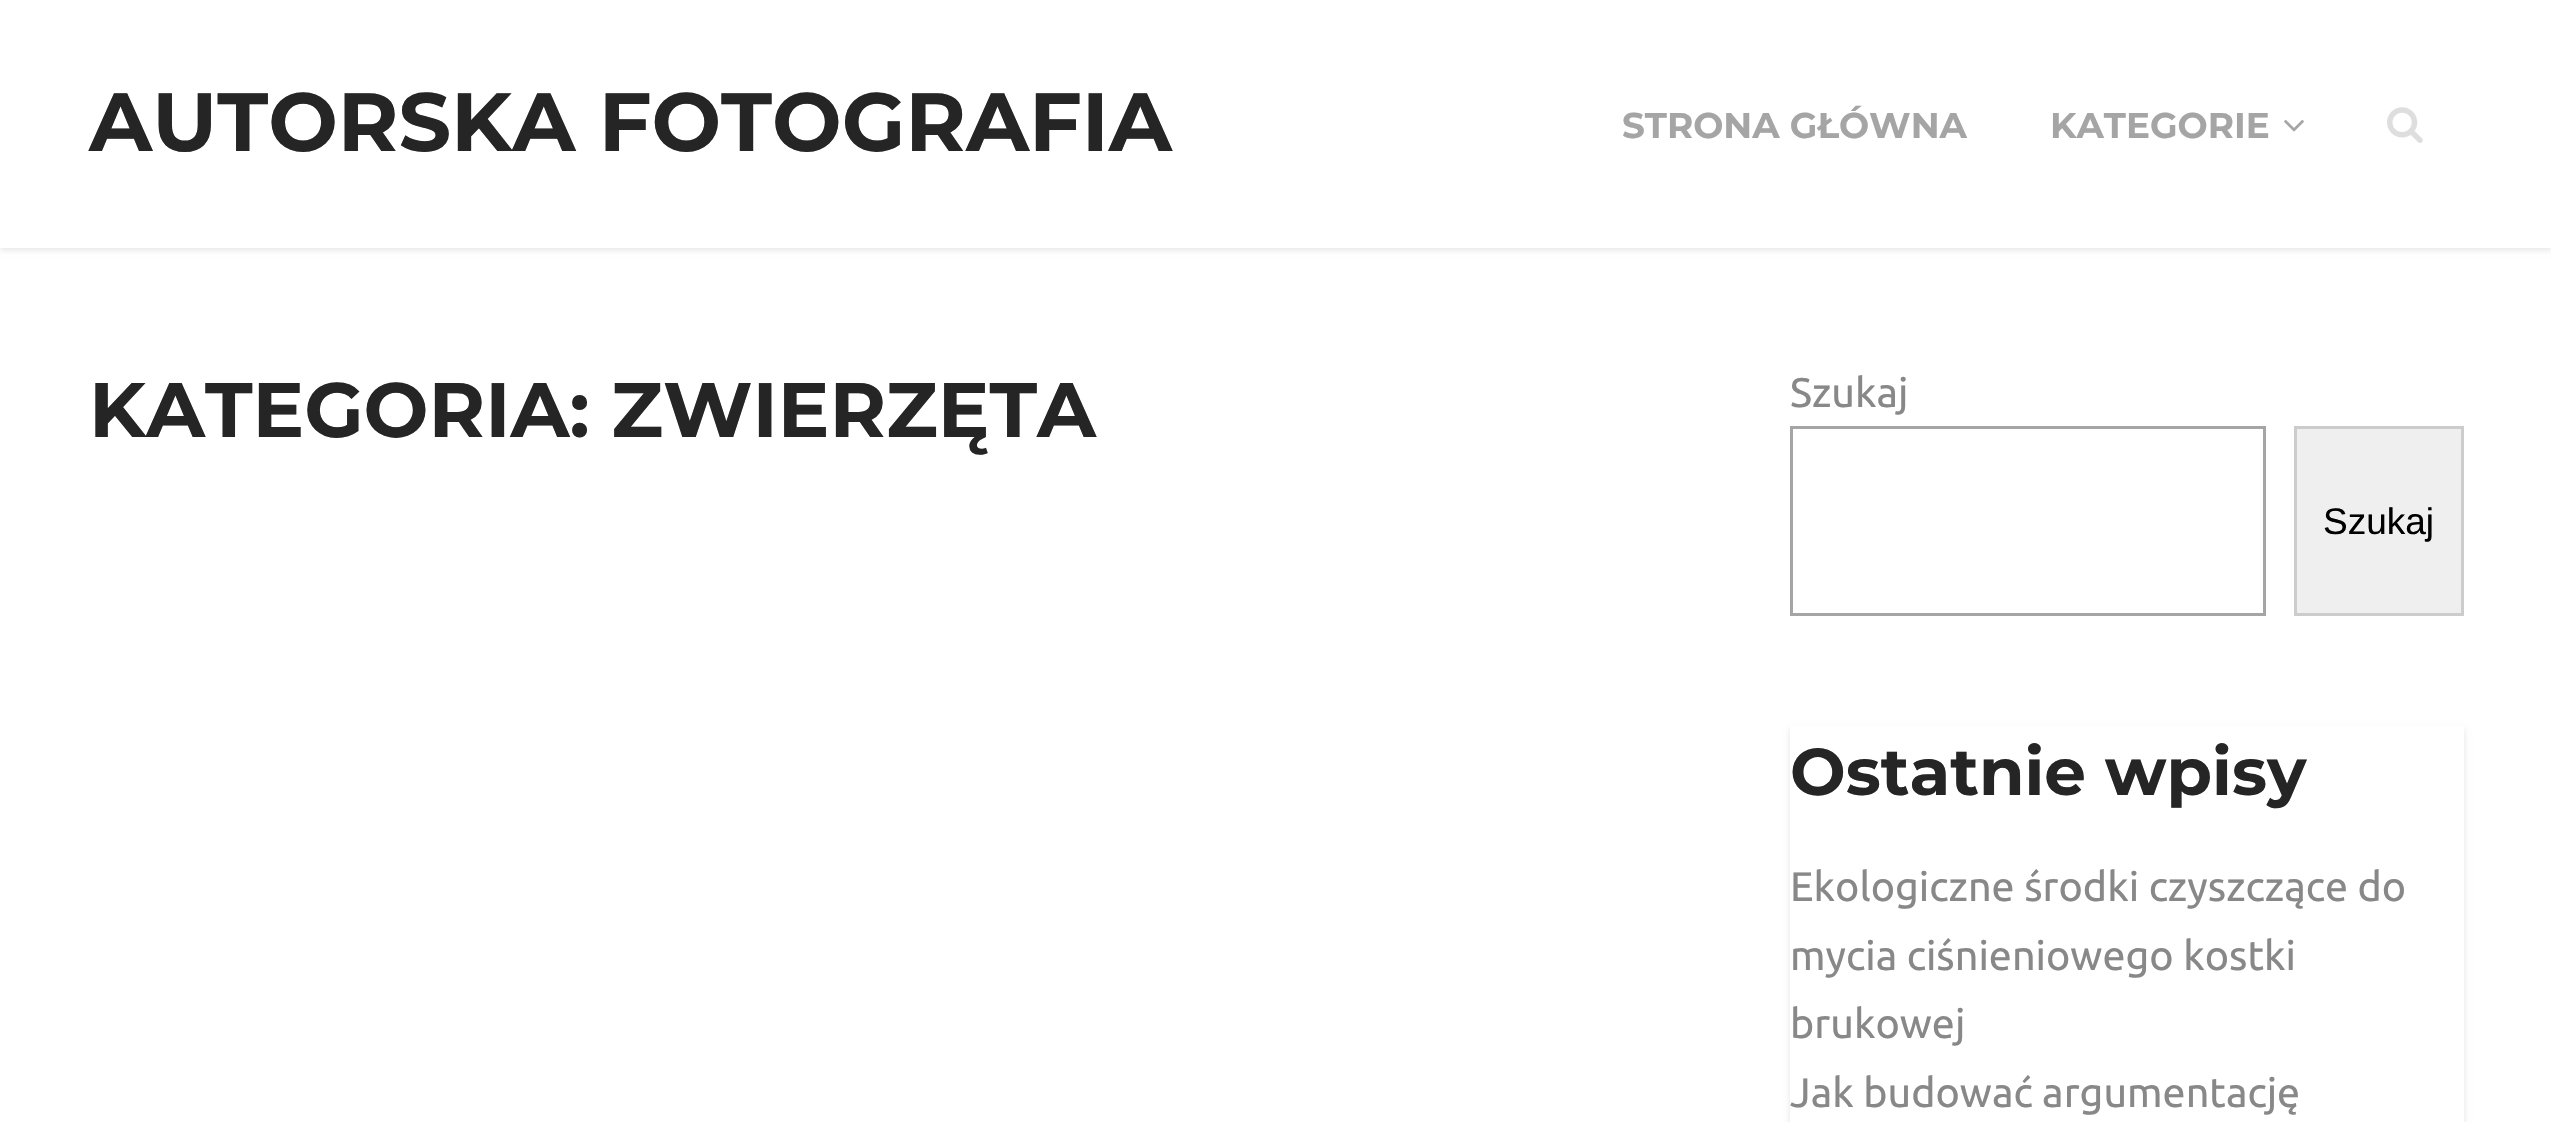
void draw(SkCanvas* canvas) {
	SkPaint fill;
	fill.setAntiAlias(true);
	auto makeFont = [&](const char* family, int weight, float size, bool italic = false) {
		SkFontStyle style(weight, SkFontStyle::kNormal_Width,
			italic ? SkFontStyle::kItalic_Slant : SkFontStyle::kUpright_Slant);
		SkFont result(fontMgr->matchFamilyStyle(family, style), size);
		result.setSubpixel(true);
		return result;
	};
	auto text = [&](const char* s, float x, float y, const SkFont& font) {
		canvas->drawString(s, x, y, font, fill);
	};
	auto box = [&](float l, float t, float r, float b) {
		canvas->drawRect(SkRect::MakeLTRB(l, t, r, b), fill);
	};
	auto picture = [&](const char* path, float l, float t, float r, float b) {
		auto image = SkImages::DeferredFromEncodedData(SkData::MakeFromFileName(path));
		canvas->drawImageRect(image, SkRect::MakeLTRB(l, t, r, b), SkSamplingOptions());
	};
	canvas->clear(0xFFFFFFFF);
	fill.setColor(0x1A000000);
	fill.setMaskFilter(SkMaskFilter::MakeBlur(kNormal_SkBlurStyle, 3));
	canvas->drawRect(SkRect::MakeLTRB(0, 3, 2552, 250), fill);
	fill.setMaskFilter(nullptr);
	fill.setColor(0xFFFFFFFF);
	box(0, 0, 2551, 248);
	picture("image0.png", 2284, 120, 2304, 132);
	picture("image1.png", 2387, 107, 2423, 143);
	fill.setStyle(SkPaint::kStroke_Style);
	fill.setStrokeWidth(3);
	fill.setColor(0xFFA5A5A5);
	canvas->drawRect(SkRect::MakeLTRB(1791.5f, 427.5f, 2264.5f, 614.5f), fill);
	fill.setStyle(SkPaint::kFill_Style);
	fill.setColor(0xFFEFEFEF);
	canvas->drawRect(SkRect::MakeLTRB(2295.5f, 427.5f, 2462.5f, 614.5f), fill);
	fill.setStyle(SkPaint::kStroke_Style);
	fill.setColor(0xFFCCCCCC);
	canvas->drawRect(SkRect::MakeLTRB(2295.5f, 427.5f, 2462.5f, 614.5f), fill);
	fill.setStyle(SkPaint::kFill_Style);
	fill.setColor(0x1A000000);
	fill.setMaskFilter(SkMaskFilter::MakeBlur(kNormal_SkBlurStyle, 3));
	canvas->drawRect(SkRect::MakeLTRB(1790, 729, 2464, 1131), fill);
	fill.setMaskFilter(nullptr);
	fill.setColor(0xFFFFFFFF);
	box(1790, 726, 2464, 1122);
	auto font1 = makeFont("Montserrat", 100, 82.5f);
	fill.setColor(0xFF252525);
	text("AUTORSKA FOTOGRAFIA", 89, 151, font1);
	auto font2 = makeFont("Montserrat", 100, 35.75f);
	fill.setColor(0xFFA5A5A5);
	text("STRONA GŁÓWNA", 1622, 138, font2);
	text("KATEGORIE", 2050, 138, font2);
	auto font3 = makeFont("Montserrat", 100, 77);
	fill.setColor(0xFF252525);
	text("KATEGORIA: ZWIERZĘTA", 89, 437, font3);
	auto font4 = makeFont("Ubuntu", 400, 41.25f);
	fill.setColor(0xFF888888);
	text("Szukaj", 1790, 407, font4);
	auto font5 = makeFont("Liberation Sans", 400, 37);
	fill.setColor(0xFF000000);
	text("Szukaj", 2323, 534, font5);
	auto font6 = makeFont("Montserrat", 100, 66);
	fill.setColor(0xFF252525);
	text("Ostatnie wpisy", 1790, 795, font6);
	fill.setColor(0xFF888888);
	text("Ekologiczne środki czyszczące do", 1790, 901, font4);
	text("mycia ciśnieniowego kostki", 1790, 970, font4);
	text("brukowej", 1790, 1038, font4);
	text("Jak budować argumentację", 1790, 1107, font4);
}
